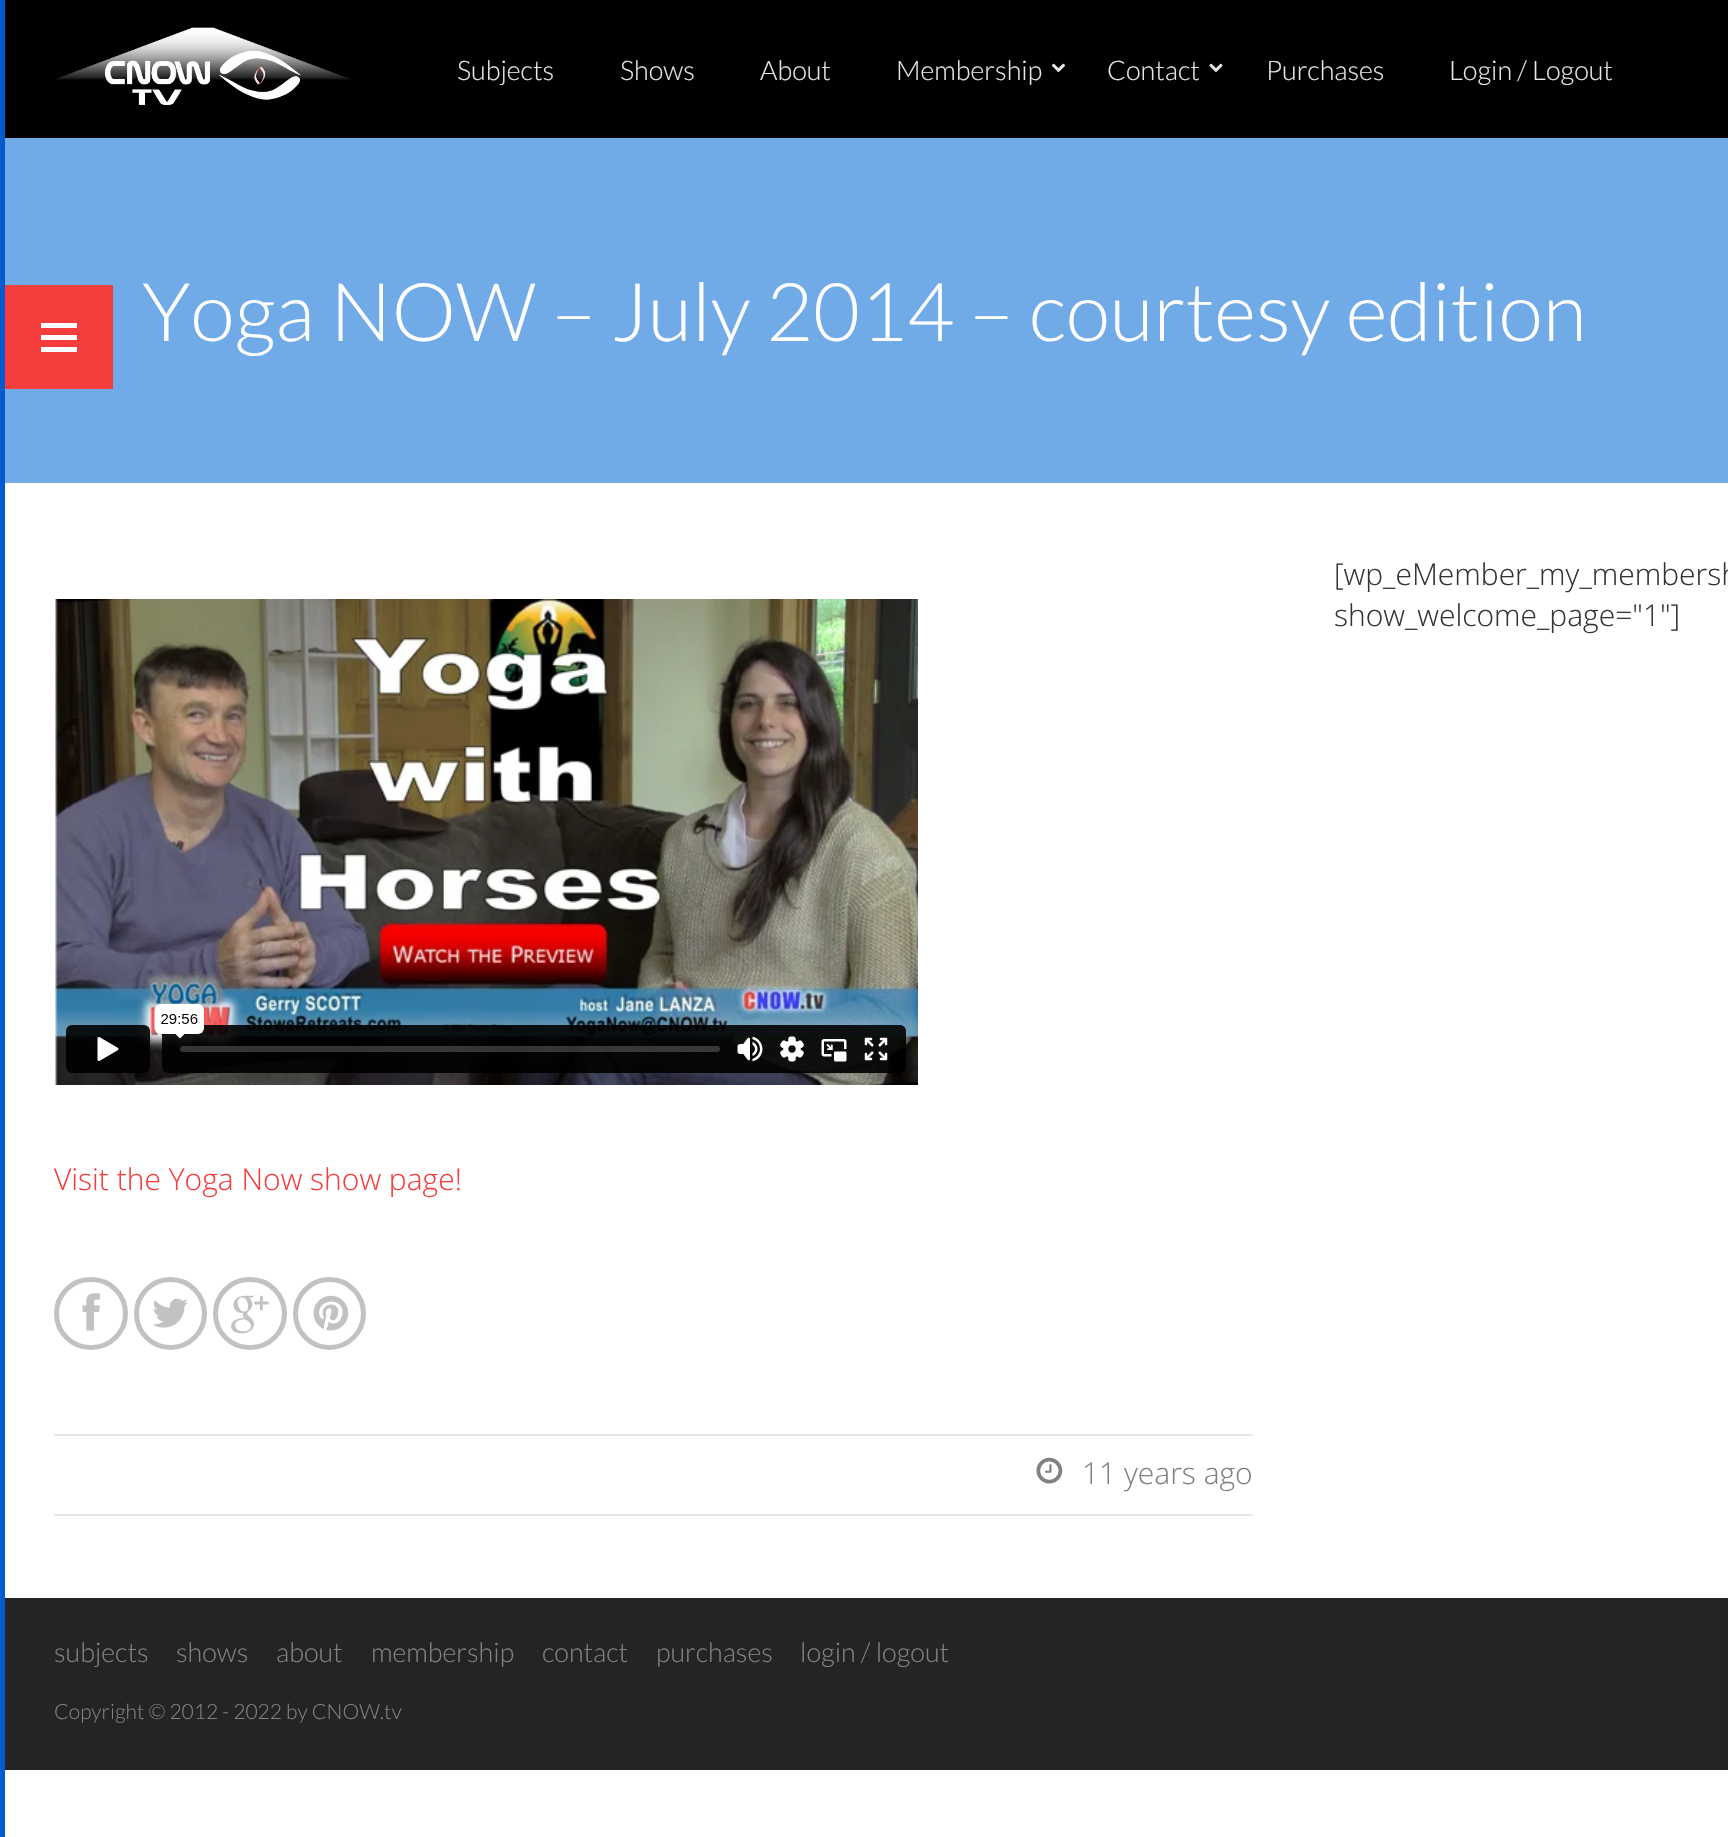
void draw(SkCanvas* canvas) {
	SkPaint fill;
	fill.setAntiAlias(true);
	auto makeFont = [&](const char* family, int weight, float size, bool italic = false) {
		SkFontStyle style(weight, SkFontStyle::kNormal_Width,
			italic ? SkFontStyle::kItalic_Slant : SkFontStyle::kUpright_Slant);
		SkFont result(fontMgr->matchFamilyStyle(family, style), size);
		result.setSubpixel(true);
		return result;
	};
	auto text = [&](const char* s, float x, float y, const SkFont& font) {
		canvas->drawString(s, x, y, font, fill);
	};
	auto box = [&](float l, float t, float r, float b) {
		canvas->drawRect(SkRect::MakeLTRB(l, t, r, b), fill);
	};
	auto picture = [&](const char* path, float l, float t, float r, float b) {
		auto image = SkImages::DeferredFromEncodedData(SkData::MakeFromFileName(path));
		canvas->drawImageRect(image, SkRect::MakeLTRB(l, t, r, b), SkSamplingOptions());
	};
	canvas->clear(0xFFFFFFFF);
	fill.setColor(0xFF005BCF);
	box(0, 0, 5, 1837);
	fill.setColor(0xFF70AAE7);
	box(5, 138, 1728, 483);
	fill.setColor(0xFFF63D3D);
	box(5, 285, 113, 389);
	fill.setColor(0xFFFFFFFF);
	box(41, 335, 77, 340);
	box(41, 323, 77, 328);
	box(41, 347, 77, 352);
	fill.setColor(0xFF000000);
	box(5, 0, 1728, 138);
	picture("image0.png", 54, 27, 351, 106);
	picture("image1.png", 1052, 63, 1065, 72);
	picture("image2.png", 1209, 63, 1223, 72);
	picture("image3.png", 55, 599, 918, 1085);
	fill.setStyle(SkPaint::kStroke_Style);
	fill.setStrokeWidth(5);
	fill.setColor(0xFFC2C2C2);
	canvas->drawRoundRect(SkRect::MakeLTRB(56.5f, 1279.5f, 125.5f, 1347.5f), 34, 34, fill);
	picture("image4.png", 82, 1293, 100, 1331);
	canvas->drawCircle(170.5f, 1313.5f, 34, fill);
	picture("image5.png", 153, 1298, 188, 1328);
	canvas->drawRoundRect(SkRect::MakeLTRB(215.5f, 1279.5f, 284.5f, 1347.5f), 34, 34, fill);
	picture("image6.png", 231, 1295, 269, 1334);
	canvas->drawCircle(329.5f, 1313.5f, 34, fill);
	picture("image7.png", 313, 1295, 349, 1331);
	fill.setStyle(SkPaint::kFill_Style);
	fill.setColor(0xFFE6E6E6);
	box(54, 1434, 1253, 1436);
	box(54, 1514, 1253, 1516);
	picture("image8.png", 1036, 1457, 1063, 1484);
	fill.setColor(0xFF242424);
	box(5, 1598, 1728, 1770);
	auto font1 = makeFont("Lato", 300, 27);
	fill.setColor(0xFFE6E6E6);
	text("Subjects", 457, 80, font1);
	text("Shows", 620, 80, font1);
	text("About", 760, 80, font1);
	text("Membership", 896, 80, font1);
	text("Contact", 1107, 80, font1);
	text("Purchases", 1266, 80, font1);
	text("Login / Logout", 1449, 80, font1);
	auto font2 = makeFont("Lato", 300, 81);
	fill.setColor(0xFFFEFEFE);
	text("Yoga NOW – July 2014 – courtesy edition", 142, 341, font2);
	auto font3 = makeFont("Open Sans", 300, 30);
	fill.setColor(0xFF343434);
	text("[wp_eMember_my_membersh", 1334, 585, font3);
	text("show_welcome_page=\"1\"]", 1334, 626, font3);
	fill.setColor(0xFFF63D3D);
	text("Visit the Yoga Now show page!", 54, 1190, font3);
	fill.setColor(0xFF828282);
	text("11 years ago", 1082, 1484, font3);
	text("subjects", 54, 1662, font1);
	text("shows", 176, 1662, font1);
	text("about", 276, 1662, font1);
	text("membership", 371, 1662, font1);
	text("contact", 542, 1662, font1);
	text("purchases", 656, 1662, font1);
	text("login / logout", 800, 1662, font1);
	auto font4 = makeFont("Lato", 300, 21);
	text("Copyright © 2012 - 2022 by CNOW.tv", 54, 1719, font4);
}
